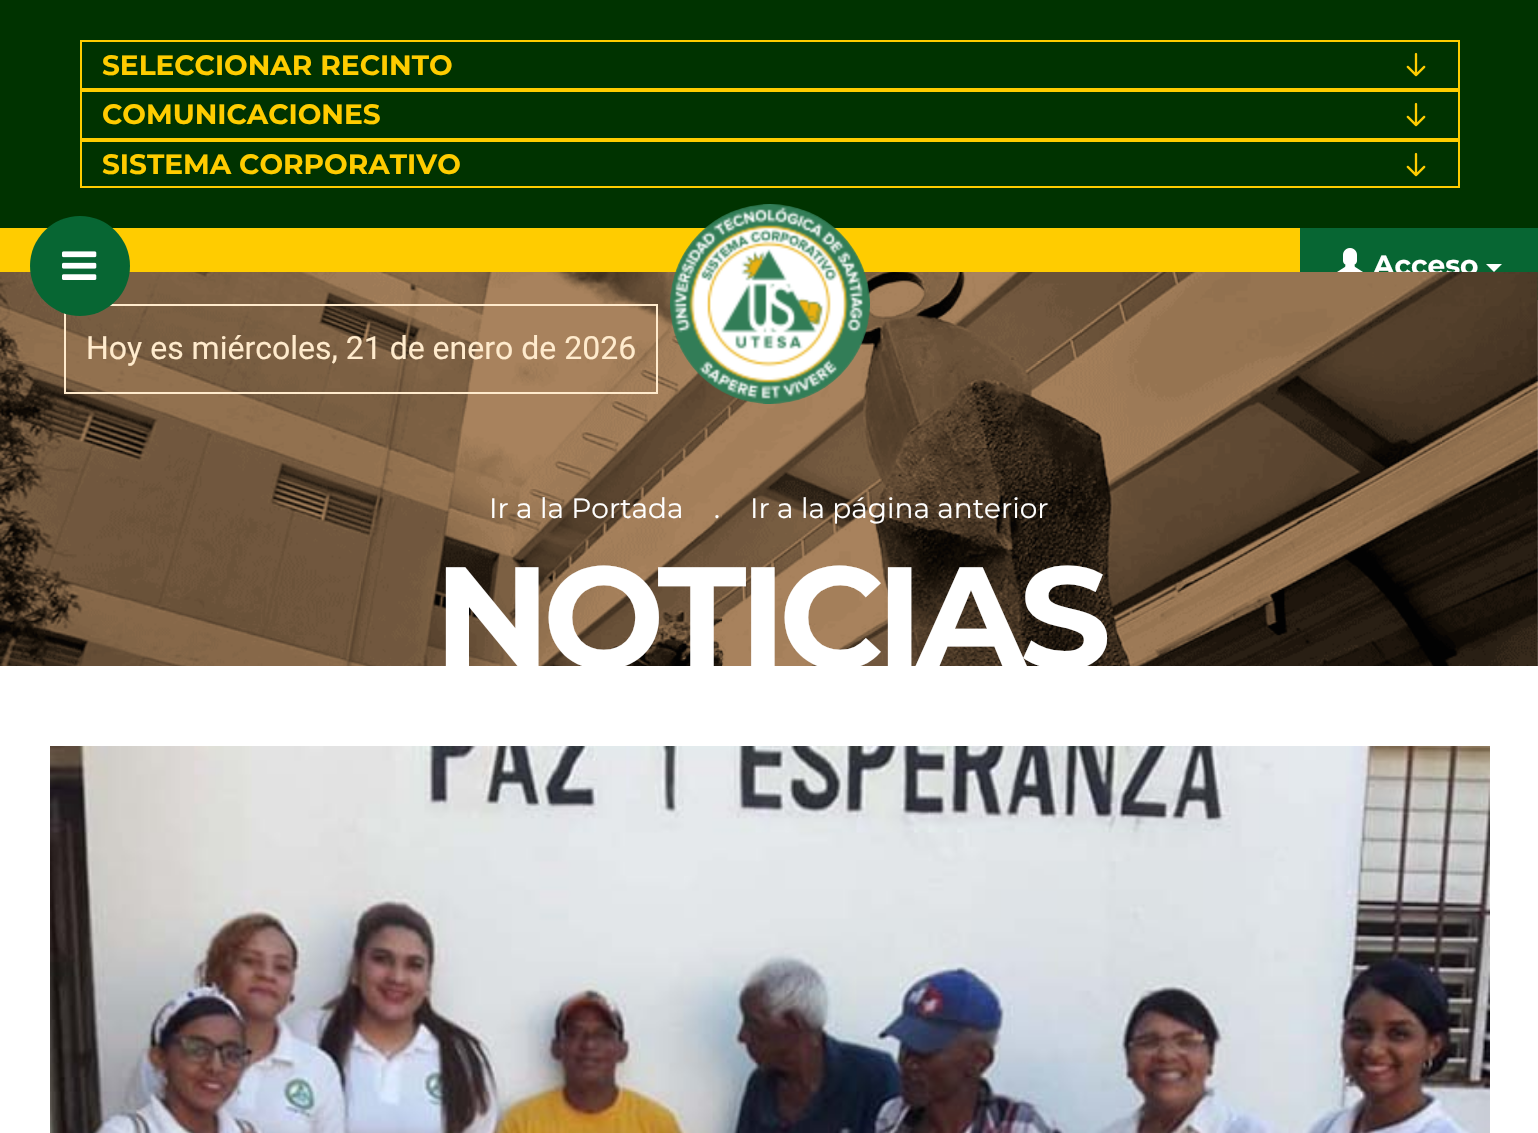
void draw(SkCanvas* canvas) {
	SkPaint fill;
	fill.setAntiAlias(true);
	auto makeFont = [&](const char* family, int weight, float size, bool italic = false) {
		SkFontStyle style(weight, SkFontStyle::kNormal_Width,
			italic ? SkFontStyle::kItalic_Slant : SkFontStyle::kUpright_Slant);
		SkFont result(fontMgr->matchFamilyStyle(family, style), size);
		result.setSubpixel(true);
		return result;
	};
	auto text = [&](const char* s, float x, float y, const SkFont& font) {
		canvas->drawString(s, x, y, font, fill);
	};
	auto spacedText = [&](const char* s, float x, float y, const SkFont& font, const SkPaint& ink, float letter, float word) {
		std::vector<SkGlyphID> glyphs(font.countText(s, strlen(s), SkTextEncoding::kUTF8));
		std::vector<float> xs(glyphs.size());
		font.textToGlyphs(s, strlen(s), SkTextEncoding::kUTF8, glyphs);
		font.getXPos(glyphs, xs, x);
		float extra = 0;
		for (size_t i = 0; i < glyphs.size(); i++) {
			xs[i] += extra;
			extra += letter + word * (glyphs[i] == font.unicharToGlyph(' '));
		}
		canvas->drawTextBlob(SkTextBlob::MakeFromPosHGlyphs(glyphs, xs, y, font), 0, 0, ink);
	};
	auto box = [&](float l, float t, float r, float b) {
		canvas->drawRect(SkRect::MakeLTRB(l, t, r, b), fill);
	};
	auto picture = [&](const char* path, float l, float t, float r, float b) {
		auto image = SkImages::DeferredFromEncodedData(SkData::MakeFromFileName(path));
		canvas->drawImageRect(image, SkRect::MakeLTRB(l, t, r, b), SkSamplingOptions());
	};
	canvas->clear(0xFFFFFFFF);
	fill.setColor(0xFF003300);
	box(0, 0, 1538, 228);
	fill.setStyle(SkPaint::kStroke_Style);
	fill.setStrokeWidth(2);
	fill.setColor(0xFFFFCC00);
	canvas->drawRect(SkRect::MakeLTRB(81, 41, 1459, 89), fill);
	picture("image0.png", 1406, 52, 1426, 77);
	canvas->drawRect(SkRect::MakeLTRB(81, 91, 1459, 139), fill);
	picture("image0.png", 1406, 102, 1426, 127);
	canvas->drawRect(SkRect::MakeLTRB(81, 141, 1459, 187), fill);
	picture("image0.png", 1406, 152, 1426, 177);
	fill.setStyle(SkPaint::kFill_Style);
	box(0, 228, 1300, 272);
	fill.setColor(0xFF076633);
	box(1300, 228, 1538, 300);
	picture("image3.png", 1337, 248, 1363, 272);
	fill.setColor(0xFFFFFFFF);
	canvas->drawPath(SkPathBuilder().moveTo(1486, 264).lineTo(1502, 264).lineTo(1494, 272).close().detach(), fill);
	picture("image5.png", 50, 746, 1490, 1133);
	auto font1 = makeFont("Montserrat", 700, 28);
	fill.setColor(0xFFFFCC00);
	text("SELECCIONAR RECINTO", 102, 75, font1);
	text("COMUNICACIONES", 102, 124, font1);
	text("SISTEMA CORPORATIVO", 102, 174, font1);
	fill.setColor(0xFFFFFFFF);
	text("Acceso", 1373, 275, font1);
	picture("image4.png", 0, 272, 1538, 666);
	picture("image1.png", 670, 204, 870, 404);
	fill.setStyle(SkPaint::kStroke_Style);
	fill.setColor(0xFFFFEBCD);
	canvas->drawRect(SkRect::MakeLTRB(65, 305, 657, 393), fill);
	fill.setStyle(SkPaint::kFill_Style);
	fill.setColor(0xFF076633);
	canvas->drawCircle(80, 266, 50, fill);
	picture("image2.png", 62, 251, 97, 280);
	auto font2 = makeFont("Roboto", 400, 32);
	fill.setColor(0xFFFFEBCD);
	text("Hoy es miércoles, 21 de enero de 2026", 86, 359, font2);
	auto font3 = makeFont("Montserrat", 400, 28);
	fill.setColor(0xFFFFFFFF);
	text("Ir a la Portada", 489, 518, font3);
	text(".", 714, 518, font3);
	text("Ir a la página anterior", 750, 518, font3);
	auto font4 = makeFont("Montserrat", 700, 144);
	spacedText("NOTICIAS", 434, 668, font4, fill, -7.25f, 0);
}
